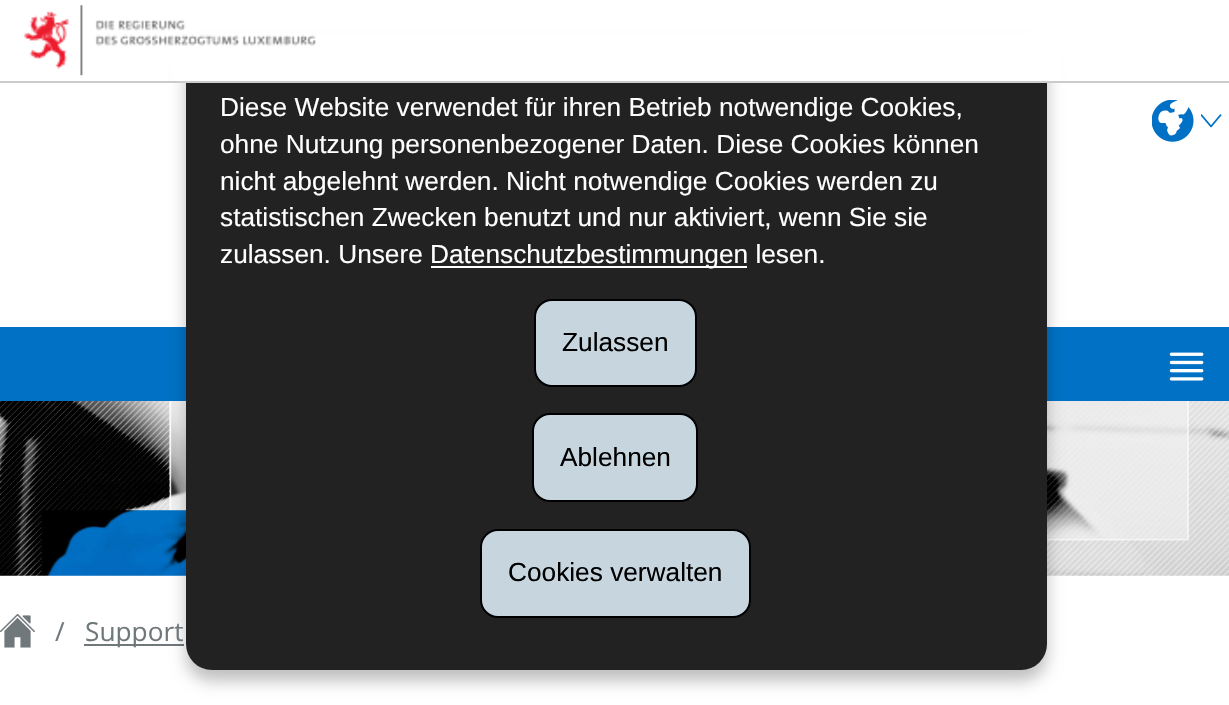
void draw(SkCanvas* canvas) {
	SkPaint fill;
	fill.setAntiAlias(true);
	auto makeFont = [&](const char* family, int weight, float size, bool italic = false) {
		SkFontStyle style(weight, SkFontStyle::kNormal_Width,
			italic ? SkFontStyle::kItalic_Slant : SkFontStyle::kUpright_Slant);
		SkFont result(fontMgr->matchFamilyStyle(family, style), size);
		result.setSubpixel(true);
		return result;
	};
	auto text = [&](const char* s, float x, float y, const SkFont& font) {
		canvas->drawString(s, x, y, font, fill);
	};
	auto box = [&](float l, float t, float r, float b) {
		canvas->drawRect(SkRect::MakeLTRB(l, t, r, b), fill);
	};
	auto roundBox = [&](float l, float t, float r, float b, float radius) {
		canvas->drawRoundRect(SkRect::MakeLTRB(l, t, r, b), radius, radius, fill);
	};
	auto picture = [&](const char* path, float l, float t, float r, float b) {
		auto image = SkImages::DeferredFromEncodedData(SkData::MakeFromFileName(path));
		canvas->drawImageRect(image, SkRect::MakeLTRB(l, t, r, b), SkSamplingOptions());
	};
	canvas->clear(0xFFFFFFFF);
	picture("image3.png", 0, 401, 1229, 576);
	fill.setColor(0xFF0071C4);
	box(0, 327, 1229, 401);
	fill.setColor(0xFF70787C);
	box(84, 644, 184, 646);
	fill.setColor(0x40000000);
	fill.setMaskFilter(SkMaskFilter::MakeBlur(kNormal_SkBlurStyle, 8));
	canvas->drawRoundRect(SkRect::MakeLTRB(186, 47, 1047, 681), 26, 26, fill);
	fill.setMaskFilter(nullptr);
	fill.setColor(0xFF222222);
	roundBox(186, 37, 1047, 670, 26);
	fill.setColor(0xFFFFFFFF);
	box(172, 33, 1061, 81);
	fill.setColor(0xFFCCCACA);
	box(0, 81, 1229, 83);
	picture("image0.png", 23, 5, 316, 76);
	fill.setColor(0xFFFFFFFF);
	box(431, 266, 747, 268);
	fill.setColor(0xFFC6D5DE);
	canvas->drawRoundRect(SkRect::MakeLTRB(535, 300, 696, 386), 17, 17, fill);
	fill.setStyle(SkPaint::kStroke_Style);
	fill.setStrokeWidth(2);
	fill.setColor(0xFF000000);
	canvas->drawRoundRect(SkRect::MakeLTRB(535, 300, 696, 386), 17, 17, fill);
	fill.setStyle(SkPaint::kFill_Style);
	fill.setColor(0xFFC6D5DE);
	canvas->drawRoundRect(SkRect::MakeLTRB(533, 414, 697, 501), 17, 17, fill);
	fill.setStyle(SkPaint::kStroke_Style);
	fill.setColor(0xFF000000);
	canvas->drawRoundRect(SkRect::MakeLTRB(533, 414, 697, 501), 17, 17, fill);
	fill.setStyle(SkPaint::kFill_Style);
	fill.setColor(0xFFC6D5DE);
	canvas->drawRoundRect(SkRect::MakeLTRB(481, 530, 750, 617), 17, 17, fill);
	fill.setStyle(SkPaint::kStroke_Style);
	fill.setColor(0xFF000000);
	canvas->drawRoundRect(SkRect::MakeLTRB(481, 530, 750, 617), 17, 17, fill);
	picture("image1.png", 1152, 100, 1194, 142);
	picture("image2.png", 1201, 114, 1222, 128);
	picture("image4.png", 1169, 352, 1204, 381);
	picture("image5.png", 0, 613, 35, 648);
	auto font1 = makeFont("Liberation Sans", 400, 26.25f);
	fill.setStyle(SkPaint::kFill_Style);
	fill.setColor(0xFFFFFFFF);
	text("Diese Website verwendet für ihren Betrieb notwendige Cookies,", 220, 116, font1);
	text("ohne Nutzung personenbezogener Daten. Diese Cookies können", 220, 153, font1);
	text("nicht abgelehnt werden. Nicht notwendige Cookies werden zu", 220, 190, font1);
	text("statistischen Zwecken benutzt und nur aktiviert, wenn Sie sie", 220, 226, font1);
	text("zulassen. Unsere", 220, 263, font1);
	text("Datenschutzbestimmungen lesen.", 430, 263, font1);
	fill.setColor(0xFF000000);
	text("Zulassen", 562, 351, font1);
	text("Ablehnen", 560, 466, font1);
	text("Cookies verwalten", 508, 581, font1);
	auto font2 = makeFont("Open Sans", 400, 26.25f);
	fill.setColor(0xFF70787C);
	text("/", 55, 641, font2);
	text("Support", 85, 641, font2);
}
